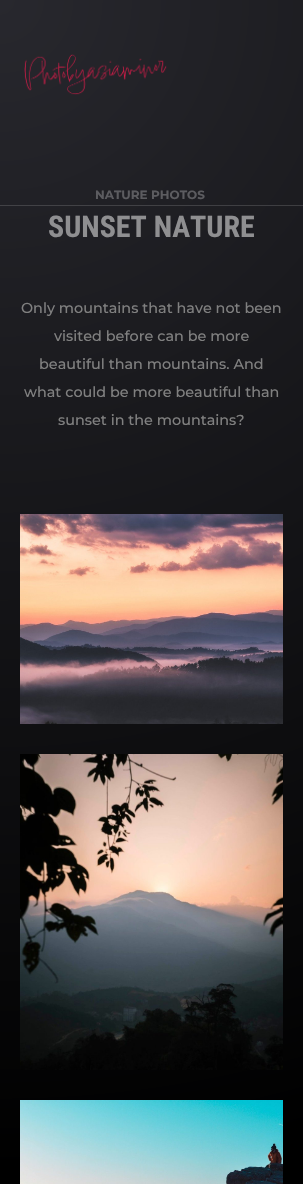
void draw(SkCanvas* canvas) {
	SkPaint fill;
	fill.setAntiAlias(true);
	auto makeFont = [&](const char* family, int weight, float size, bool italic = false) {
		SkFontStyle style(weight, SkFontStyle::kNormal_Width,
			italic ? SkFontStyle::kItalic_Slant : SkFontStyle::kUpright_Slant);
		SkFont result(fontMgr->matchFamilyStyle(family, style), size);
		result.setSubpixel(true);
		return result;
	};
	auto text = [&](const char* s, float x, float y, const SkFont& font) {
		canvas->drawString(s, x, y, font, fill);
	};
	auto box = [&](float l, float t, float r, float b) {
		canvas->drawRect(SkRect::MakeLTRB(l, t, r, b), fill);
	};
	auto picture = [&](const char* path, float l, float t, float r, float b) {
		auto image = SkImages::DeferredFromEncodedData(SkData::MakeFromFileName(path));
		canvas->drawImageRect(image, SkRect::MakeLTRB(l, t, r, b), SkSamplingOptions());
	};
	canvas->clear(0xFFFFFFFF);
	{
		const SkColor colors[] = {0xFF28282E, 0xFF000000};
		const float stops[] = {0, 0.7f};
		fill.setShader(SkGradientShader::MakeRadial({0, 0}, 1674, colors, stops, 2, SkTileMode::kClamp));
		fill.setAlpha(255);
	}
	box(0, 0, 303, 1184);
	{
		const SkColor colors[] = {0xFF48484D, 0xFF262626};
		const float stops[] = {0, 0.7f};
		fill.setShader(SkGradientShader::MakeRadial({0, 0}, 1674, colors, stops, 2, SkTileMode::kClamp));
		fill.setAlpha(255);
	}
	box(0, 205, 303, 206);
	picture("image0.png", 24, 54, 167, 95);
	picture("image1.png", 20, 514, 283, 724);
	picture("image2.png", 20, 754, 283, 1070);
	picture("image3.png", 20, 1100, 283, 1184);
	auto font1 = makeFont("Montserrat", 700, 12);
	fill.setShader(nullptr);
	fill.setColor(0xFF5C5C60);
	text("NATURE PHOTOS", 95, 199, font1);
	auto font2 = makeFont("Roboto Condensed", 700, 30);
	fill.setColor(0xFF8F8F91);
	text("SUNSET NATURE", 48, 237, font2);
	auto font3 = makeFont("Montserrat", 500, 14.4f);
	fill.setColor(0xFF808080);
	text("Only mountains that have not been", 21, 313, font3);
	text("visited before can be more", 54, 341, font3);
	text("beautiful than mountains. And", 39, 369, font3);
	text("what could be more beautiful than", 24, 397, font3);
	text("sunset in the mountains?", 58, 425, font3);
}
